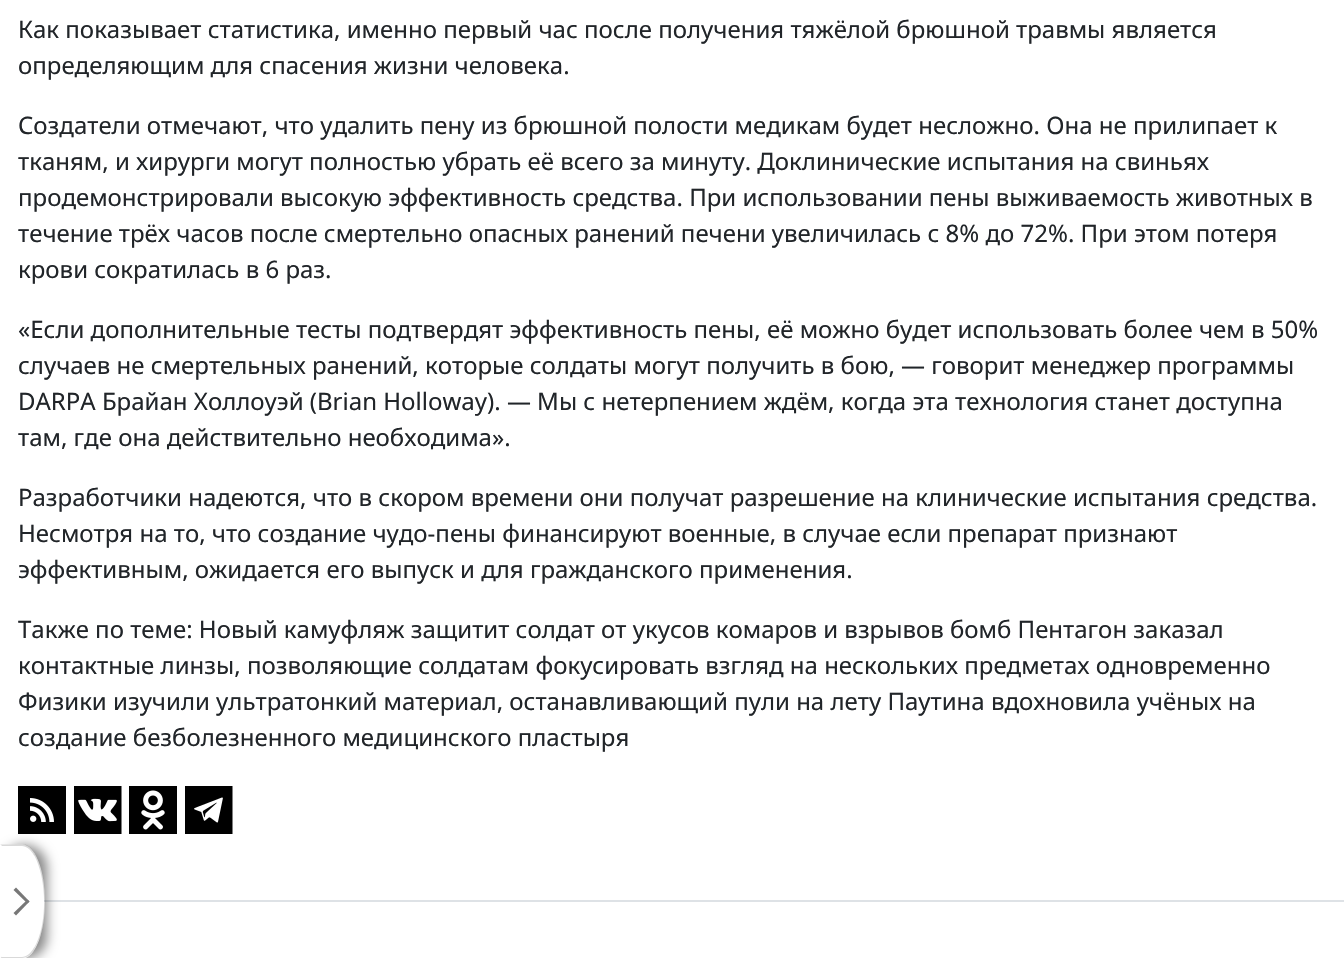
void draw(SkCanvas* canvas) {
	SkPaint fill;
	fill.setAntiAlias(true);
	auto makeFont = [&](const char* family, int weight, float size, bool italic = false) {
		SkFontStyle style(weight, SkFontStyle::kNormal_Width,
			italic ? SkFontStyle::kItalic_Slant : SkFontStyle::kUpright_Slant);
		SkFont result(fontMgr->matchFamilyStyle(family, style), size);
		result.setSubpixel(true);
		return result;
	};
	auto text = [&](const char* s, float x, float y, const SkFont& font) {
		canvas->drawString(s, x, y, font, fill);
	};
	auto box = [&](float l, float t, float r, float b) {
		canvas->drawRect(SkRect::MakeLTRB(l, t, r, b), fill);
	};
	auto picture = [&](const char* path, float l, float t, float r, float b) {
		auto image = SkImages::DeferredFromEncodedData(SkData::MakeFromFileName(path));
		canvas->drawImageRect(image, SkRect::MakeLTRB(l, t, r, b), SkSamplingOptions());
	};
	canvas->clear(0xFFFFFFFF);
	picture("image0.png", 18, 786, 66, 834);
	picture("image1.png", 74, 786, 122, 834);
	picture("image2.png", 129, 786, 177, 834);
	picture("image3.png", 185, 786, 233, 834);
	fill.setColor(0xFFDEE2E6);
	box(43, 900, 1344, 902);
	canvas->save();
	canvas->clipPath(SkPathBuilder(SkPathFillType::kEvenOdd).moveTo(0, 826).lineTo(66, 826).lineTo(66, 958).lineTo(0, 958).close().moveTo(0, 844.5f).lineTo(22.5f, 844.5f).cubicTo(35, 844.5f, 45, 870, 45, 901.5f).cubicTo(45, 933, 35, 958.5f, 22.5f, 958.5f).lineTo(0, 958.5f).close().detach(), true);
	fill.setColor(0x78000000);
	fill.setMaskFilter(SkMaskFilter::MakeBlur(kNormal_SkBlurStyle, 6));
	canvas->drawRoundRect(SkRect::MakeLTRB(2, 845, 47, 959), 22.5f, 22.5f, fill);
	fill.setMaskFilter(nullptr);
	canvas->restore();
	fill.setColor(0xFFFFFFFF);
	canvas->drawPath(SkPathBuilder().moveTo(2, 846).lineTo(22, 846).cubicTo(34, 846, 44, 871, 44, 902).cubicTo(44, 932, 34, 957, 22, 957).lineTo(2, 957).close().detach(), fill);
	fill.setColor(0x26000000);
	canvas->drawPath(SkPathBuilder().moveTo(2, 846).lineTo(2, 846.5f).lineTo(0, 844.5f).lineTo(25, 844.5f).cubicTo(29, 845.5f, 32.5f, 849, 35, 854.5f).lineTo(34, 855.5f).cubicTo(30.5f, 849.5f, 26.5f, 846, 22, 846).close().detach(), fill);
	canvas->drawPath(SkPathBuilder().moveTo(35, 854).cubicTo(48, 877, 49, 926, 35, 948).lineTo(34, 948).cubicTo(48, 925, 47, 878, 34, 855).close().detach(), fill);
	canvas->drawPath(SkPathBuilder().moveTo(35, 948.5f).cubicTo(31.5f, 954.5f, 27, 958, 22, 958).lineTo(0.5f, 958).lineTo(2, 956.5f).lineTo(2, 957).lineTo(22, 957).cubicTo(26.5f, 957, 30.5f, 953.5f, 34, 947.5f).close().detach(), fill);
	fill.setColor(0xFFFFFFFF);
	canvas->drawPath(SkPathBuilder().moveTo(0, 844).lineTo(0, 958).lineTo(2, 956).lineTo(2, 846).close().detach(), fill);
	fill.setColor(0xFF777777);
	canvas->drawPath(SkPathBuilder().moveTo(13.5f, 890).lineTo(16, 887.5f).lineTo(29.5f, 901.5f).lineTo(27.5f, 903.5f).close().detach(), fill);
	canvas->drawPath(SkPathBuilder().moveTo(13.5f, 913).lineTo(27.5f, 899.5f).lineTo(29.5f, 901.5f).lineTo(16, 915.5f).close().detach(), fill);
	auto font1 = makeFont("Noto Sans", 400, 24);
	fill.setColor(0xFF212529);
	text("Как показывает статистика, именно первый час после получения тяжёлой брюшной травмы является", 18, 38, font1);
	text("определяющим для спасения жизни человека.", 18, 74, font1);
	text("Создатели отмечают, что удалить пену из брюшной полости медикам будет несложно. Она не прилипает к", 18, 134, font1);
	text("тканям, и хирурги могут полностью убрать её всего за минуту. Доклинические испытания на свиньях", 18, 170, font1);
	text("продемонстрировали высокую эффективность средства. При использовании пены выживаемость животных в", 18, 206, font1);
	text("течение трёх часов после смертельно опасных ранений печени увеличилась с 8% до 72%. При этом потеря", 18, 242, font1);
	text("крови сократилась в 6 раз.", 18, 278, font1);
	text("«Если дополнительные тесты подтвердят эффективность пены, её можно будет использовать более чем в 50%", 18, 338, font1);
	text("случаев не смертельных ранений, которые солдаты могут получить в бою, — говорит менеджер программы", 18, 374, font1);
	text("DARPA Брайан Холлоуэй (Brian Holloway). — Мы с нетерпением ждём, когда эта технология станет доступна", 18, 410, font1);
	text("там, где она действительно необходима».", 18, 446, font1);
	text("Разработчики надеются, что в скором времени они получат разрешение на клинические испытания средства.", 18, 506, font1);
	text("Несмотря на то, что создание чудо-пены финансируют военные, в случае если препарат признают", 18, 542, font1);
	text("эффективным, ожидается его выпуск и для гражданского применения.", 18, 578, font1);
	text("Также по теме: Новый камуфляж защитит солдат от укусов комаров и взрывов бомб Пентагон заказал", 18, 638, font1);
	text("контактные линзы, позволяющие солдатам фокусировать взгляд на нескольких предметах одновременно", 18, 674, font1);
	text("Физики изучили ультратонкий материал, останавливающий пули на лету Паутина вдохновила учёных на", 18, 710, font1);
	text("создание безболезненного медицинского пластыря", 18, 746, font1);
}
